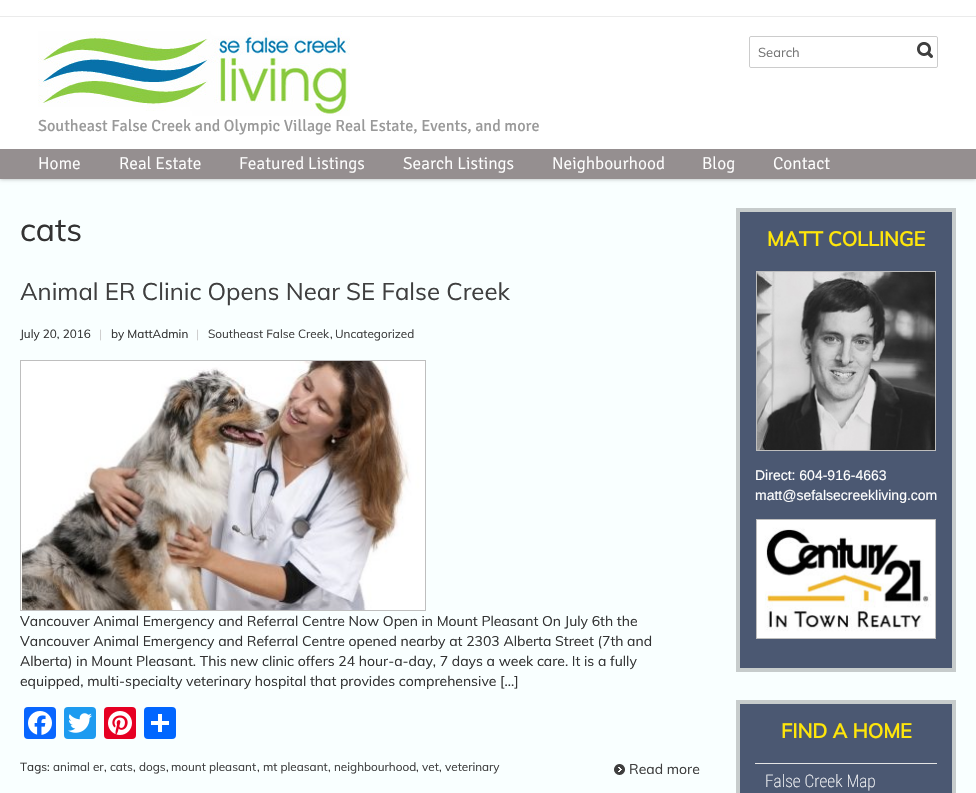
void draw(SkCanvas* canvas) {
	SkPaint fill;
	fill.setAntiAlias(true);
	auto makeFont = [&](const char* family, int weight, float size, bool italic = false) {
		SkFontStyle style(weight, SkFontStyle::kNormal_Width,
			italic ? SkFontStyle::kItalic_Slant : SkFontStyle::kUpright_Slant);
		SkFont result(fontMgr->matchFamilyStyle(family, style), size);
		result.setSubpixel(true);
		return result;
	};
	auto text = [&](const char* s, float x, float y, const SkFont& font) {
		canvas->drawString(s, x, y, font, fill);
	};
	auto box = [&](float l, float t, float r, float b) {
		canvas->drawRect(SkRect::MakeLTRB(l, t, r, b), fill);
	};
	auto roundBox = [&](float l, float t, float r, float b, float radius) {
		canvas->drawRoundRect(SkRect::MakeLTRB(l, t, r, b), radius, radius, fill);
	};
	auto picture = [&](const char* path, float l, float t, float r, float b) {
		auto image = SkImages::DeferredFromEncodedData(SkData::MakeFromFileName(path));
		canvas->drawImageRect(image, SkRect::MakeLTRB(l, t, r, b), SkSamplingOptions());
	};
	canvas->clear(0xFFF9FFFF);
	fill.setColor(0x4D000000);
	fill.setMaskFilter(SkMaskFilter::MakeBlur(kNormal_SkBlurStyle, 2));
	canvas->drawRect(SkRect::MakeLTRB(0, -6, 976, 179), fill);
	fill.setMaskFilter(nullptr);
	fill.setColor(0xFFFFFFFF);
	box(0, 0, 976, 16);
	fill.setColor(0xFFEBEBEB);
	box(0, 16, 976, 17);
	fill.setColor(0xFFFFFFFF);
	box(0, 17, 976, 149);
	fill.setStyle(SkPaint::kStroke_Style);
	fill.setStrokeWidth(1);
	fill.setColor(0xFFCCCCCC);
	canvas->drawRoundRect(SkRect::MakeLTRB(749.5f, 36.5f, 937.5f, 67.5f), 1.5f, 1.5f, fill);
	canvas->save();
	canvas->clipPath(SkPathBuilder().moveTo(751, 37).lineTo(936, 37).cubicTo(936.5f, 37, 937, 37.5f, 937, 38).lineTo(937, 66).cubicTo(937, 66.5f, 936.5f, 67, 936, 67).lineTo(751, 67).cubicTo(750.5f, 67, 750, 66.5f, 750, 66).lineTo(750, 38).cubicTo(750, 37.5f, 750.5f, 37, 751, 37).close().detach(), true);
	fill.setStyle(SkPaint::kFill_Style);
	fill.setColor(0xFFFFFFFF);
	roundBox(750, 37, 937, 67, 2);
	canvas->restore();
	picture("image0.png", 917, 42, 933, 58);
	picture("image1.png", 38, 31, 350, 116);
	fill.setColor(0xFF958F90);
	box(0, 149, 976, 179);
	fill.setStyle(SkPaint::kStroke_Style);
	fill.setColor(0xFFBEBEBE);
	canvas->drawRect(SkRect::MakeLTRB(20.5f, 360.5f, 425.5f, 610.5f), fill);
	picture("image2.png", 21, 361, 425, 610);
	fill.setStyle(SkPaint::kFill_Style);
	fill.setColor(0xFF0866FF);
	roundBox(24, 707, 56, 739, 4);
	picture("image3.png", 28, 711, 52, 735);
	fill.setColor(0xFF1D9BF0);
	roundBox(64, 707, 96, 739, 4);
	picture("image4.png", 68, 713, 92, 733);
	fill.setColor(0xFFE60023);
	roundBox(104, 707, 136, 739, 4);
	picture("image5.png", 108, 711, 132, 735);
	fill.setColor(0xFF0166FF);
	roundBox(144, 707, 176, 739, 4);
	fill.setColor(0xFFFFFFFF);
	box(158, 714, 162, 732);
	box(151, 721, 169, 725);
	picture("image6.png", 614, 764, 625, 775);
	fill.setColor(0xFF4B5872);
	canvas->drawRect(SkRect::MakeLTRB(738, 210, 954, 670), fill);
	fill.setStyle(SkPaint::kStroke_Style);
	fill.setStrokeWidth(4);
	fill.setColor(0xFFC7CCCC);
	canvas->drawRect(SkRect::MakeLTRB(738, 210, 954, 670), fill);
	fill.setStrokeWidth(1);
	fill.setColor(0xFFBEBEBE);
	canvas->drawRect(SkRect::MakeLTRB(756.5f, 271.5f, 935.5f, 450.5f), fill);
	picture("image7.png", 757, 272, 935, 450);
	canvas->drawRect(SkRect::MakeLTRB(756.5f, 519.5f, 935.5f, 638.5f), fill);
	picture("image8.png", 757, 520, 935, 638);
	fill.setStyle(SkPaint::kFill_Style);
	fill.setColor(0xFF4B5872);
	canvas->drawRect(SkRect::MakeLTRB(738, 702, 954, 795), fill);
	fill.setStyle(SkPaint::kStroke_Style);
	fill.setStrokeWidth(4);
	fill.setColor(0xFFC7CCCC);
	canvas->drawRect(SkRect::MakeLTRB(738, 702, 954, 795), fill);
	fill.setStyle(SkPaint::kFill_Style);
	fill.setColor(0xFFE5E5E5);
	box(755, 763, 937, 764);
	auto font1 = makeFont("Muli", 400, 13);
	fill.setColor(0xFF757575);
	text("Search", 758, 57, font1);
	auto font2 = makeFont("Signika", 400, 16.15f);
	fill.setColor(0xFF999999);
	text("Southeast False Creek and Olympic Village Real Estate, Events, and more", 38, 131, font2);
	auto font3 = makeFont("Signika", 300, 17.25f);
	fill.setColor(0xFFFFFFFF);
	text("Home", 38, 169, font3);
	text("Real Estate", 119, 169, font3);
	text("Featured Listings", 239, 169, font3);
	text("Search Listings", 403, 169, font3);
	text("Neighbourhood", 552, 169, font3);
	text("Blog", 702, 169, font3);
	text("Contact", 773, 169, font3);
	auto font4 = makeFont("Muli", 400, 32);
	fill.setColor(0xFF333333);
	text("cats", 20, 241, font4);
	auto font5 = makeFont("Muli", 400, 24);
	fill.setColor(0xFF3F3F3F);
	text("Animal ER Clinic Opens Near SE False Creek", 20, 300, font5);
	auto font6 = makeFont("Muli", 400, 11.75f);
	fill.setColor(0xFF333333);
	text("July 20, 2016", 20, 338, font6);
	fill.setColor(0xFFCCCCCC);
	text("|", 99, 338, font6);
	fill.setColor(0xFF333333);
	text("by MattAdmin", 111, 338, font6);
	fill.setColor(0xFFCCCCCC);
	text("|", 196, 338, font6);
	fill.setColor(0xFF3F3F3F);
	text("Southeast False Creek", 208, 338, font6);
	fill.setColor(0xFF333333);
	text(",", 330, 338, font6);
	fill.setColor(0xFF3F3F3F);
	text("Uncategorized", 335, 338, font6);
	auto font7 = makeFont("Muli", 400, 14);
	fill.setColor(0xFF333333);
	text("Vancouver Animal Emergency and Referral Centre Now Open in Mount Pleasant On July 6th the", 20, 626, font7);
	text("Vancouver Animal Emergency and Referral Centre opened nearby at 2303 Alberta Street (7th and", 20, 646, font7);
	text("Alberta) in Mount Pleasant. This new clinic offers 24 hour-a-day, 7 days a week care. It is a fully", 20, 666, font7);
	text("equipped, multi-specialty veterinary hospital that provides comprehensive […]", 20, 686, font7);
	text("Tags:", 20, 771, font6);
	fill.setColor(0xFF3F3F3F);
	text("animal er", 53, 771, font6);
	text("cats", 110, 771, font6);
	text("dogs", 139, 771, font6);
	text("mount pleasant", 171, 771, font6);
	text("mt pleasant", 263, 771, font6);
	text("neighbourhood", 334, 771, font6);
	text("vet", 422, 771, font6);
	text("veterinary", 445, 771, font6);
	fill.setColor(0xFF333333);
	text(",", 104, 771, font6);
	text(",", 133, 771, font6);
	text(",", 166, 771, font6);
	text(",", 257, 771, font6);
	text(",", 328, 771, font6);
	text(",", 416, 771, font6);
	text(",", 439, 771, font6);
	fill.setColor(0xFF3F3F3F);
	text("Read more", 629, 774, font7);
	auto font8 = makeFont("Muli", 700, 20);
	fill.setColor(0xFFFFE60A);
	text("MATT COLLINGE", 767, 246, font8);
	auto font9 = makeFont("Liberation Sans", 400, 14);
	fill.setColor(0xFFFFFFFF);
	text("Direct: 604-916-4663", 755, 480, font9);
	text("matt@sefalsecreekliving.com", 755, 500, font9);
	fill.setColor(0xFFFFE60A);
	text("FIND A HOME", 781, 738, font8);
	auto font10 = makeFont("Roboto Condensed", 200, 17.25f);
	fill.setColor(0xFFFFFFFF);
	text("False Creek Map", 765, 787, font10);
}
